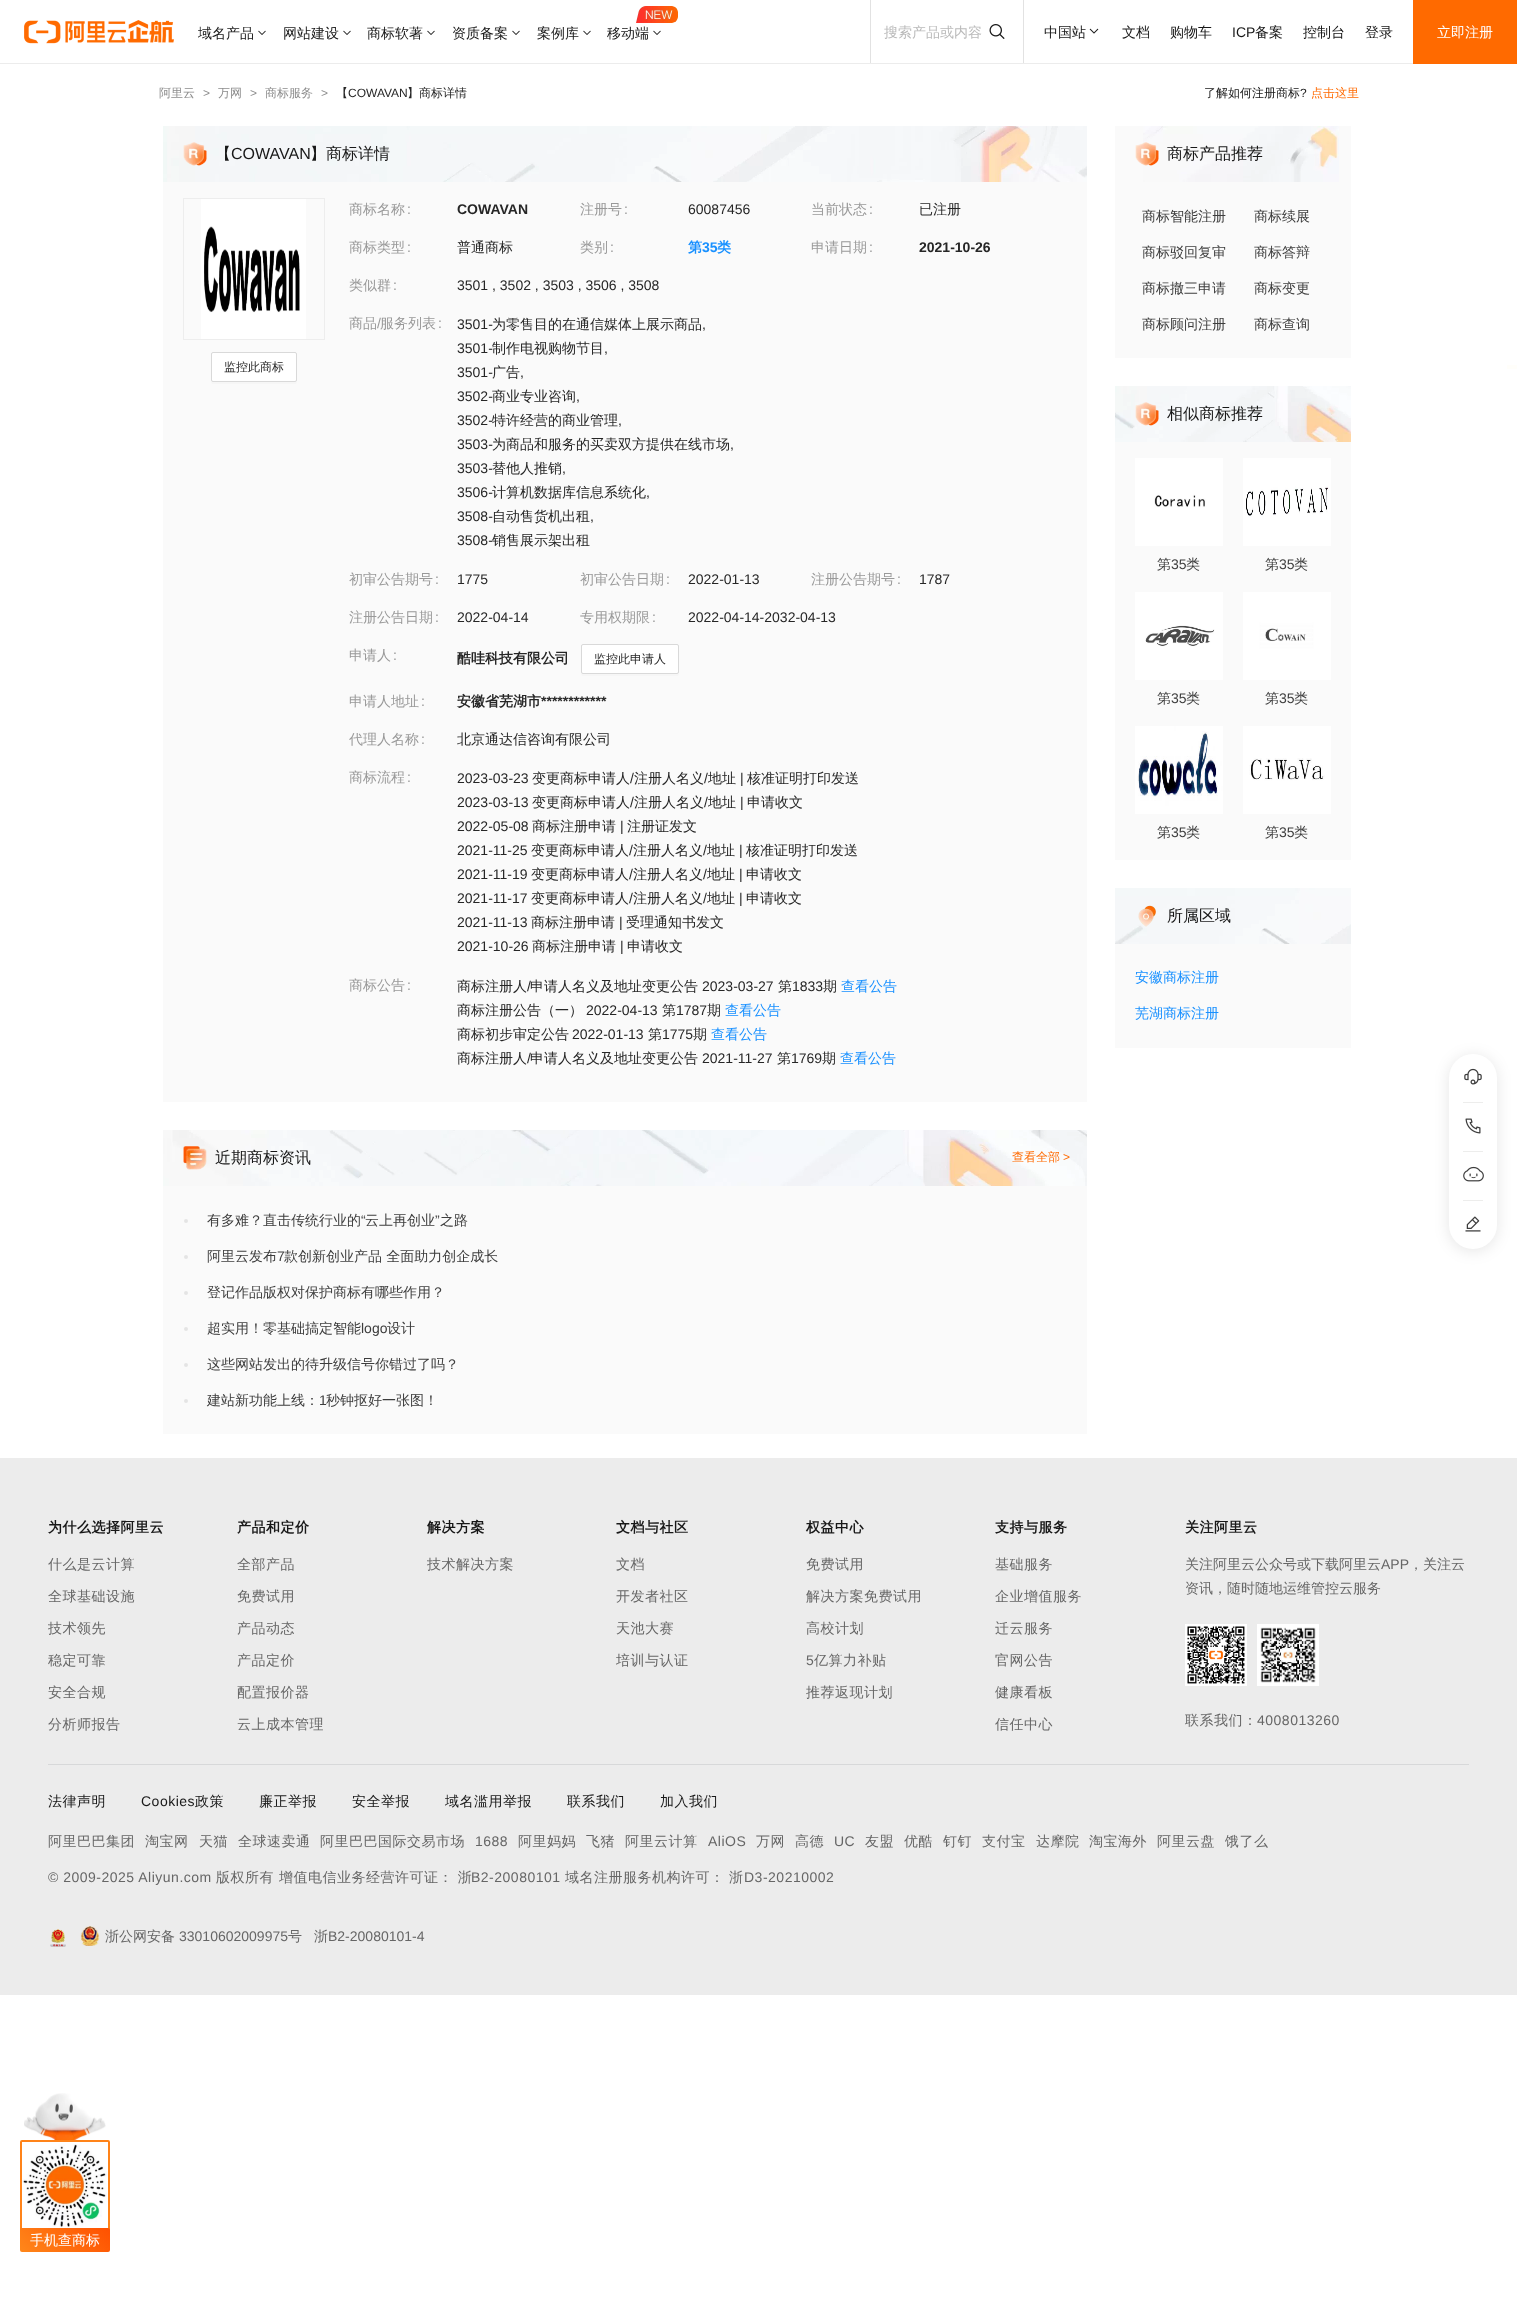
<?xml version="1.0" encoding="UTF-8"?>
<svg xmlns="http://www.w3.org/2000/svg" width="1517" height="2302">
    <defs>
        <filter id="blur1" x="-50%" y="-200%" width="200%" height="500%"><feGaussianBlur stdDeviation="7.5"/></filter>
        <linearGradient id="g1" gradientUnits="userSpaceOnUse" x1="37" y1="2269" x2="94" y2="2212"><stop offset="0" stop-color="#FF871A"/><stop offset="1" stop-color="#FF5000"/></linearGradient>
    </defs>
    <rect width="100%" height="100%" fill="#FFFFFF"/>
    <rect x="0" y="63" width="1413" height="1" fill="#ECECEC"/>
    <image x="24" y="20" width="150" height="24" href="img_01.png"/>
    <text x="198" y="38" font-family="WenQuanYi Zen Hei" font-size="14" font-weight="500" fill="#181818">域名产品</text>
    <image x="258" y="30" width="8" height="5" href="img_02.png"/>
    <text x="283" y="38" font-family="WenQuanYi Zen Hei" font-size="14" font-weight="500" fill="#181818">网站建设</text>
    <image x="343" y="30" width="8" height="5" href="img_02.png"/>
    <text x="367" y="38" font-family="WenQuanYi Zen Hei" font-size="14" font-weight="500" fill="#181818">商标软著</text>
    <image x="427" y="30" width="8" height="5" href="img_02.png"/>
    <text x="452" y="38" font-family="WenQuanYi Zen Hei" font-size="14" font-weight="500" fill="#181818">资质备案</text>
    <image x="512" y="30" width="8" height="5" href="img_02.png"/>
    <text x="537" y="38" font-family="WenQuanYi Zen Hei" font-size="14" font-weight="500" fill="#181818">案例库</text>
    <image x="583" y="30" width="8" height="5" href="img_02.png"/>
    <image x="636" y="6" width="42" height="17" href="img_03.png"/>
    <text x="607" y="38" font-family="WenQuanYi Zen Hei" font-size="14" font-weight="500" fill="#181818">移动端</text>
    <image x="653" y="30" width="8" height="5" href="img_02.png"/>
    <rect x="1023" y="0" width="1" height="63" fill="#E2E2E2"/>
    <rect x="870" y="0" width="1" height="63" fill="#E2E2E2"/>
    <text x="884" y="37" font-family="WenQuanYi Zen Hei" font-size="14" font-weight="500" fill="#BABABA">搜索产品或内容</text>
    <image x="989" y="24" width="16" height="15" href="img_04.png"/>
    <text x="1044" y="37" font-family="WenQuanYi Zen Hei" font-size="14" font-weight="500" fill="#181818">中国站</text>
    <image x="1089" y="28" width="10" height="6" href="img_05.png"/>
    <text x="1122" y="37" font-family="WenQuanYi Zen Hei" font-size="14" font-weight="500" fill="#181818">文档</text>
    <text x="1170" y="37" font-family="WenQuanYi Zen Hei" font-size="14" font-weight="500" fill="#181818">购物车</text>
    <text x="1232" y="37" font-family="Liberation Sans" font-size="14" fill="#181818">ICP</text>
    <text x="1255" y="37" font-family="WenQuanYi Zen Hei" font-size="14" font-weight="500" fill="#181818">备案</text>
    <text x="1303" y="37" font-family="WenQuanYi Zen Hei" font-size="14" font-weight="500" fill="#181818">控制台</text>
    <text x="1365" y="37" font-family="WenQuanYi Zen Hei" font-size="14" font-weight="500" fill="#181818">登录</text>
    <rect x="1413" y="0" width="104" height="64" fill="#FF6A00"/>
    <text x="1437" y="37" font-family="WenQuanYi Zen Hei" font-size="14" font-weight="500" fill="#FFFFFF">立即注册</text>
    <rect x="1449" y="1056" width="48" height="195" rx="24" fill="#000000" fill-opacity="0.1" filter="url(#blur1)"/>
    <rect x="1449" y="1054" width="48" height="195" rx="24" fill="#FFFFFF"/>
    <image x="1464" y="1068" width="18" height="17" href="img_06.png"/>
    <rect x="1463" y="1102" width="20" height="1" fill="#EDEDEC"/>
    <image x="1465" y="1118" width="16" height="16" href="img_07.png"/>
    <rect x="1463" y="1151" width="20" height="1" fill="#EDEDEC"/>
    <image x="1463" y="1166" width="21" height="16" href="img_08.png"/>
    <rect x="1463" y="1200" width="20" height="1" fill="#EDEDEC"/>
    <image x="1465" y="1216" width="16" height="16" href="img_09.png"/>
    <rect x="1507" y="365" width="10" height="4" fill="#FFFEFA"/>
    <text x="159" y="97" font-family="WenQuanYi Zen Hei" font-size="12" font-weight="500" fill="#8C8C8C">阿里云</text>
    <text x="203" y="97" font-family="Liberation Sans" font-size="12" fill="#8C8C8C">&gt;</text>
    <text x="218" y="97" font-family="WenQuanYi Zen Hei" font-size="12" font-weight="500" fill="#8C8C8C">万网</text>
    <text x="250" y="97" font-family="Liberation Sans" font-size="12" fill="#8C8C8C">&gt;</text>
    <text x="265" y="97" font-family="WenQuanYi Zen Hei" font-size="12" font-weight="500" fill="#8C8C8C">商标服务</text>
    <text x="321" y="97" font-family="Liberation Sans" font-size="12" fill="#8C8C8C">&gt;</text>
    <text x="336" y="97" font-family="WenQuanYi Zen Hei" font-size="12" font-weight="500" fill="#262626">【</text>
    <text x="348" y="97" font-family="Liberation Sans" font-size="12" fill="#262626">COWAVAN</text>
    <text x="407" y="97" font-family="WenQuanYi Zen Hei" font-size="12" font-weight="500" fill="#262626">】商标详情</text>
    <text x="1204" y="97" font-family="WenQuanYi Zen Hei" font-size="12" font-weight="500" fill="#181818">了解如何注册商标</text>
    <text x="1300" y="97" font-family="Liberation Sans" font-size="12" fill="#181818">?</text>
    <text x="1311" y="97" font-family="WenQuanYi Zen Hei" font-size="12" font-weight="500" fill="#FF6A00">点击这里</text>
    <rect x="163" y="182" width="924" height="920" fill="#FAFAFA"/>
    <image x="163" y="126" width="924" height="56" href="img_10.png"/>
    <image x="183" y="142" width="24" height="24" href="img_11.png"/>
    <text x="215" y="159" font-family="WenQuanYi Zen Hei" font-size="16" font-weight="500" fill="#181818">【</text>
    <text x="231" y="159" font-family="Liberation Sans" font-size="16" fill="#181818">COWAVAN</text>
    <text x="310" y="159" font-family="WenQuanYi Zen Hei" font-size="16" font-weight="500" fill="#181818">】商标详情</text>
    <rect x="183.5" y="198.5" width="141" height="141" fill="none" stroke="#EDEDED"/>
    <image x="201" y="199" width="105" height="140" href="img_12.png"/>
    <path d="M 211 380 V 382 C 211 383 212 384 213 384 H 295 C 296 384 297 383 297 382 V 380 C 297 381 296 382 295 382 H 213 C 212 382 211 381 211 380 Z" fill="#F6F6F6"/>
    <rect x="211.5" y="352.5" width="85" height="29" rx="1.5" fill="#FFFFFF" stroke="#D9D9D9"/>
    <text x="224" y="371" font-family="WenQuanYi Zen Hei" font-size="12" font-weight="500" fill="#262626">监控此商标</text>
    <text x="349" y="214" font-family="WenQuanYi Zen Hei" font-size="14" font-weight="500" fill="#999999">商标名称</text>
    <text x="407" y="214" font-family="Liberation Sans" font-size="14" fill="#999999">:</text>
    <text x="457" y="214" font-family="Liberation Sans" font-size="14" font-weight="700" fill="#262626">COWAVAN</text>
    <text x="580" y="214" font-family="WenQuanYi Zen Hei" font-size="14" font-weight="500" fill="#999999">注册号</text>
    <text x="624" y="214" font-family="Liberation Sans" font-size="14" fill="#999999">:</text>
    <text x="688" y="214" font-family="Liberation Sans" font-size="14" fill="#262626">60087456</text>
    <text x="811" y="214" font-family="WenQuanYi Zen Hei" font-size="14" font-weight="500" fill="#999999">当前状态</text>
    <text x="869" y="214" font-family="Liberation Sans" font-size="14" fill="#999999">:</text>
    <text x="919" y="214" font-family="WenQuanYi Zen Hei" font-size="14" font-weight="500" fill="#262626">已注册</text>
    <text x="349" y="252" font-family="WenQuanYi Zen Hei" font-size="14" font-weight="500" fill="#999999">商标类型</text>
    <text x="407" y="252" font-family="Liberation Sans" font-size="14" fill="#999999">:</text>
    <text x="457" y="252" font-family="WenQuanYi Zen Hei" font-size="14" font-weight="500" fill="#262626">普通商标</text>
    <text x="580" y="252" font-family="WenQuanYi Zen Hei" font-size="14" font-weight="500" fill="#999999">类别</text>
    <text x="610" y="252" font-family="Liberation Sans" font-size="14" fill="#999999">:</text>
    <text x="688" y="252" font-family="WenQuanYi Zen Hei" font-size="14" font-weight="700" fill="#1890FF">第</text>
    <text x="702" y="252" font-family="Liberation Sans" font-size="14" font-weight="700" fill="#1890FF">35</text>
    <text x="717" y="252" font-family="WenQuanYi Zen Hei" font-size="14" font-weight="700" fill="#1890FF">类</text>
    <text x="811" y="252" font-family="WenQuanYi Zen Hei" font-size="14" font-weight="500" fill="#999999">申请日期</text>
    <text x="869" y="252" font-family="Liberation Sans" font-size="14" fill="#999999">:</text>
    <text x="919" y="252" font-family="Liberation Sans" font-size="14" font-weight="700" fill="#262626">2021-10-26</text>
    <text x="349" y="290" font-family="WenQuanYi Zen Hei" font-size="14" font-weight="500" fill="#999999">类似群</text>
    <text x="393" y="290" font-family="Liberation Sans" font-size="14" fill="#999999">:</text>
    <text x="457" y="290" font-family="Liberation Sans" font-size="14" fill="#262626">3501 , 3502 , 3503 , 3506 , 3508</text>
    <text x="349" y="328" font-family="WenQuanYi Zen Hei" font-size="14" font-weight="500" fill="#999999">商品</text>
    <text x="377" y="328" font-family="Liberation Sans" font-size="14" fill="#999999">/</text>
    <text x="380" y="328" font-family="WenQuanYi Zen Hei" font-size="14" font-weight="500" fill="#999999">服务列表</text>
    <text x="438" y="328" font-family="Liberation Sans" font-size="14" fill="#999999">:</text>
    <text x="457" y="329" font-family="Liberation Sans" font-size="14" fill="#262626">3501-</text>
    <text x="492" y="329" font-family="WenQuanYi Zen Hei" font-size="14" font-weight="500" fill="#262626">为零售目的在通信媒体上展示商品</text>
    <text x="702" y="329" font-family="Liberation Sans" font-size="14" fill="#262626">,</text>
    <text x="457" y="353" font-family="Liberation Sans" font-size="14" fill="#262626">3501-</text>
    <text x="492" y="353" font-family="WenQuanYi Zen Hei" font-size="14" font-weight="500" fill="#262626">制作电视购物节目</text>
    <text x="604" y="353" font-family="Liberation Sans" font-size="14" fill="#262626">,</text>
    <text x="457" y="377" font-family="Liberation Sans" font-size="14" fill="#262626">3501-</text>
    <text x="492" y="377" font-family="WenQuanYi Zen Hei" font-size="14" font-weight="500" fill="#262626">广告</text>
    <text x="520" y="377" font-family="Liberation Sans" font-size="14" fill="#262626">,</text>
    <text x="457" y="401" font-family="Liberation Sans" font-size="14" fill="#262626">3502-</text>
    <text x="492" y="401" font-family="WenQuanYi Zen Hei" font-size="14" font-weight="500" fill="#262626">商业专业咨询</text>
    <text x="576" y="401" font-family="Liberation Sans" font-size="14" fill="#262626">,</text>
    <text x="457" y="425" font-family="Liberation Sans" font-size="14" fill="#262626">3502-</text>
    <text x="492" y="425" font-family="WenQuanYi Zen Hei" font-size="14" font-weight="500" fill="#262626">特许经营的商业管理</text>
    <text x="618" y="425" font-family="Liberation Sans" font-size="14" fill="#262626">,</text>
    <text x="457" y="449" font-family="Liberation Sans" font-size="14" fill="#262626">3503-</text>
    <text x="492" y="449" font-family="WenQuanYi Zen Hei" font-size="14" font-weight="500" fill="#262626">为商品和服务的买卖双方提供在线市场</text>
    <text x="730" y="449" font-family="Liberation Sans" font-size="14" fill="#262626">,</text>
    <text x="457" y="473" font-family="Liberation Sans" font-size="14" fill="#262626">3503-</text>
    <text x="492" y="473" font-family="WenQuanYi Zen Hei" font-size="14" font-weight="500" fill="#262626">替他人推销</text>
    <text x="562" y="473" font-family="Liberation Sans" font-size="14" fill="#262626">,</text>
    <text x="457" y="497" font-family="Liberation Sans" font-size="14" fill="#262626">3506-</text>
    <text x="492" y="497" font-family="WenQuanYi Zen Hei" font-size="14" font-weight="500" fill="#262626">计算机数据库信息系统化</text>
    <text x="646" y="497" font-family="Liberation Sans" font-size="14" fill="#262626">,</text>
    <text x="457" y="521" font-family="Liberation Sans" font-size="14" fill="#262626">3508-</text>
    <text x="492" y="521" font-family="WenQuanYi Zen Hei" font-size="14" font-weight="500" fill="#262626">自动售货机出租</text>
    <text x="590" y="521" font-family="Liberation Sans" font-size="14" fill="#262626">,</text>
    <text x="457" y="545" font-family="Liberation Sans" font-size="14" fill="#262626">3508-</text>
    <text x="492" y="545" font-family="WenQuanYi Zen Hei" font-size="14" font-weight="500" fill="#262626">销售展示架出租</text>
    <text x="349" y="584" font-family="WenQuanYi Zen Hei" font-size="14" font-weight="500" fill="#999999">初审公告期号</text>
    <text x="435" y="584" font-family="Liberation Sans" font-size="14" fill="#999999">:</text>
    <text x="457" y="584" font-family="Liberation Sans" font-size="14" fill="#262626">1775</text>
    <text x="580" y="584" font-family="WenQuanYi Zen Hei" font-size="14" font-weight="500" fill="#999999">初审公告日期</text>
    <text x="666" y="584" font-family="Liberation Sans" font-size="14" fill="#999999">:</text>
    <text x="688" y="584" font-family="Liberation Sans" font-size="14" fill="#262626">2022-01-13</text>
    <text x="811" y="584" font-family="WenQuanYi Zen Hei" font-size="14" font-weight="500" fill="#999999">注册公告期号</text>
    <text x="897" y="584" font-family="Liberation Sans" font-size="14" fill="#999999">:</text>
    <text x="919" y="584" font-family="Liberation Sans" font-size="14" fill="#262626">1787</text>
    <text x="349" y="622" font-family="WenQuanYi Zen Hei" font-size="14" font-weight="500" fill="#999999">注册公告日期</text>
    <text x="435" y="622" font-family="Liberation Sans" font-size="14" fill="#999999">:</text>
    <text x="457" y="622" font-family="Liberation Sans" font-size="14" fill="#262626">2022-04-14</text>
    <text x="580" y="622" font-family="WenQuanYi Zen Hei" font-size="14" font-weight="500" fill="#999999">专用权期限</text>
    <text x="652" y="622" font-family="Liberation Sans" font-size="14" fill="#999999">:</text>
    <text x="688" y="622" font-family="Liberation Sans" font-size="14" fill="#262626">2022-04-14-2032-04-13</text>
    <text x="349" y="660" font-family="WenQuanYi Zen Hei" font-size="14" font-weight="500" fill="#999999">申请人</text>
    <text x="393" y="660" font-family="Liberation Sans" font-size="14" fill="#999999">:</text>
    <text x="457" y="663" font-family="WenQuanYi Zen Hei" font-size="14" font-weight="700" fill="#262626">酷哇科技有限公司</text>
    <path d="M 581 672 V 674 C 581 675 582 676 583 676 H 677 C 678 676 679 675 679 674 V 672 C 679 673 678 674 677 674 H 583 C 582 674 581 673 581 672 Z" fill="#F6F6F6"/>
    <rect x="581.5" y="644.5" width="97" height="29" rx="1.5" fill="#FFFFFF" stroke="#D9D9D9"/>
    <text x="594" y="663" font-family="WenQuanYi Zen Hei" font-size="12" font-weight="500" fill="#262626">监控此申请人</text>
    <text x="349" y="706" font-family="WenQuanYi Zen Hei" font-size="14" font-weight="500" fill="#999999">申请人地址</text>
    <text x="421" y="706" font-family="Liberation Sans" font-size="14" fill="#999999">:</text>
    <text x="457" y="706" font-family="WenQuanYi Zen Hei" font-size="14" font-weight="700" fill="#262626">安徽省芜湖市</text>
    <text x="541" y="706" font-family="Liberation Sans" font-size="14" font-weight="700" fill="#262626">************</text>
    <text x="349" y="744" font-family="WenQuanYi Zen Hei" font-size="14" font-weight="500" fill="#999999">代理人名称</text>
    <text x="421" y="744" font-family="Liberation Sans" font-size="14" fill="#999999">:</text>
    <text x="457" y="744" font-family="WenQuanYi Zen Hei" font-size="14" font-weight="500" fill="#262626">北京通达信咨询有限公司</text>
    <text x="349" y="782" font-family="WenQuanYi Zen Hei" font-size="14" font-weight="500" fill="#999999">商标流程</text>
    <text x="407" y="782" font-family="Liberation Sans" font-size="14" fill="#999999">:</text>
    <text x="457" y="783" font-family="Liberation Sans" font-size="14" fill="#262626">2023-03-23</text>
    <text x="532" y="783" font-family="WenQuanYi Zen Hei" font-size="14" font-weight="500" fill="#262626">变更商标申请人</text>
    <text x="630" y="783" font-family="Liberation Sans" font-size="14" fill="#262626">/</text>
    <text x="634" y="783" font-family="WenQuanYi Zen Hei" font-size="14" font-weight="500" fill="#262626">注册人名义</text>
    <text x="704" y="783" font-family="Liberation Sans" font-size="14" fill="#262626">/</text>
    <text x="708" y="783" font-family="WenQuanYi Zen Hei" font-size="14" font-weight="500" fill="#262626">地址</text>
    <text x="740" y="783" font-family="Liberation Sans" font-size="14" fill="#262626">|</text>
    <text x="747" y="783" font-family="WenQuanYi Zen Hei" font-size="14" font-weight="500" fill="#262626">核准证明打印发送</text>
    <text x="457" y="807" font-family="Liberation Sans" font-size="14" fill="#262626">2023-03-13</text>
    <text x="532" y="807" font-family="WenQuanYi Zen Hei" font-size="14" font-weight="500" fill="#262626">变更商标申请人</text>
    <text x="630" y="807" font-family="Liberation Sans" font-size="14" fill="#262626">/</text>
    <text x="634" y="807" font-family="WenQuanYi Zen Hei" font-size="14" font-weight="500" fill="#262626">注册人名义</text>
    <text x="704" y="807" font-family="Liberation Sans" font-size="14" fill="#262626">/</text>
    <text x="708" y="807" font-family="WenQuanYi Zen Hei" font-size="14" font-weight="500" fill="#262626">地址</text>
    <text x="740" y="807" font-family="Liberation Sans" font-size="14" fill="#262626">|</text>
    <text x="747" y="807" font-family="WenQuanYi Zen Hei" font-size="14" font-weight="500" fill="#262626">申请收文</text>
    <text x="457" y="831" font-family="Liberation Sans" font-size="14" fill="#262626">2022-05-08</text>
    <text x="532" y="831" font-family="WenQuanYi Zen Hei" font-size="14" font-weight="500" fill="#262626">商标注册申请</text>
    <text x="620" y="831" font-family="Liberation Sans" font-size="14" fill="#262626">|</text>
    <text x="627" y="831" font-family="WenQuanYi Zen Hei" font-size="14" font-weight="500" fill="#262626">注册证发文</text>
    <text x="457" y="855" font-family="Liberation Sans" font-size="14" fill="#262626">2021-11-25</text>
    <text x="531" y="855" font-family="WenQuanYi Zen Hei" font-size="14" font-weight="500" fill="#262626">变更商标申请人</text>
    <text x="629" y="855" font-family="Liberation Sans" font-size="14" fill="#262626">/</text>
    <text x="633" y="855" font-family="WenQuanYi Zen Hei" font-size="14" font-weight="500" fill="#262626">注册人名义</text>
    <text x="703" y="855" font-family="Liberation Sans" font-size="14" fill="#262626">/</text>
    <text x="707" y="855" font-family="WenQuanYi Zen Hei" font-size="14" font-weight="500" fill="#262626">地址</text>
    <text x="739" y="855" font-family="Liberation Sans" font-size="14" fill="#262626">|</text>
    <text x="746" y="855" font-family="WenQuanYi Zen Hei" font-size="14" font-weight="500" fill="#262626">核准证明打印发送</text>
    <text x="457" y="879" font-family="Liberation Sans" font-size="14" fill="#262626">2021-11-19</text>
    <text x="531" y="879" font-family="WenQuanYi Zen Hei" font-size="14" font-weight="500" fill="#262626">变更商标申请人</text>
    <text x="629" y="879" font-family="Liberation Sans" font-size="14" fill="#262626">/</text>
    <text x="633" y="879" font-family="WenQuanYi Zen Hei" font-size="14" font-weight="500" fill="#262626">注册人名义</text>
    <text x="703" y="879" font-family="Liberation Sans" font-size="14" fill="#262626">/</text>
    <text x="707" y="879" font-family="WenQuanYi Zen Hei" font-size="14" font-weight="500" fill="#262626">地址</text>
    <text x="739" y="879" font-family="Liberation Sans" font-size="14" fill="#262626">|</text>
    <text x="746" y="879" font-family="WenQuanYi Zen Hei" font-size="14" font-weight="500" fill="#262626">申请收文</text>
    <text x="457" y="903" font-family="Liberation Sans" font-size="14" fill="#262626">2021-11-17</text>
    <text x="531" y="903" font-family="WenQuanYi Zen Hei" font-size="14" font-weight="500" fill="#262626">变更商标申请人</text>
    <text x="629" y="903" font-family="Liberation Sans" font-size="14" fill="#262626">/</text>
    <text x="633" y="903" font-family="WenQuanYi Zen Hei" font-size="14" font-weight="500" fill="#262626">注册人名义</text>
    <text x="703" y="903" font-family="Liberation Sans" font-size="14" fill="#262626">/</text>
    <text x="707" y="903" font-family="WenQuanYi Zen Hei" font-size="14" font-weight="500" fill="#262626">地址</text>
    <text x="739" y="903" font-family="Liberation Sans" font-size="14" fill="#262626">|</text>
    <text x="746" y="903" font-family="WenQuanYi Zen Hei" font-size="14" font-weight="500" fill="#262626">申请收文</text>
    <text x="457" y="927" font-family="Liberation Sans" font-size="14" fill="#262626">2021-11-13</text>
    <text x="531" y="927" font-family="WenQuanYi Zen Hei" font-size="14" font-weight="500" fill="#262626">商标注册申请</text>
    <text x="619" y="927" font-family="Liberation Sans" font-size="14" fill="#262626">|</text>
    <text x="626" y="927" font-family="WenQuanYi Zen Hei" font-size="14" font-weight="500" fill="#262626">受理通知书发文</text>
    <text x="457" y="951" font-family="Liberation Sans" font-size="14" fill="#262626">2021-10-26</text>
    <text x="532" y="951" font-family="WenQuanYi Zen Hei" font-size="14" font-weight="500" fill="#262626">商标注册申请</text>
    <text x="620" y="951" font-family="Liberation Sans" font-size="14" fill="#262626">|</text>
    <text x="627" y="951" font-family="WenQuanYi Zen Hei" font-size="14" font-weight="500" fill="#262626">申请收文</text>
    <text x="349" y="990" font-family="WenQuanYi Zen Hei" font-size="14" font-weight="500" fill="#999999">商标公告</text>
    <text x="407" y="990" font-family="Liberation Sans" font-size="14" fill="#999999">:</text>
    <text x="457" y="991" font-family="WenQuanYi Zen Hei" font-size="14" font-weight="500" fill="#262626">商标注册人</text>
    <text x="527" y="991" font-family="Liberation Sans" font-size="14" fill="#262626">/</text>
    <text x="530" y="991" font-family="WenQuanYi Zen Hei" font-size="14" font-weight="500" fill="#262626">申请人名义及地址变更公告</text>
    <text x="702" y="991" font-family="Liberation Sans" font-size="14" fill="#262626">2023-03-27</text>
    <text x="778" y="991" font-family="WenQuanYi Zen Hei" font-size="14" font-weight="500" fill="#262626">第</text>
    <text x="792" y="991" font-family="Liberation Sans" font-size="14" fill="#262626">1833</text>
    <text x="823" y="991" font-family="WenQuanYi Zen Hei" font-size="14" font-weight="500" fill="#262626">期</text>
    <text x="841" y="991" font-family="WenQuanYi Zen Hei" font-size="14" font-weight="500" fill="#1890FF">查看公告</text>
    <text x="457" y="1015" font-family="WenQuanYi Zen Hei" font-size="14" font-weight="500" fill="#262626">商标注册公告（一）</text>
    <text x="586" y="1015" font-family="Liberation Sans" font-size="14" fill="#262626">2022-04-13</text>
    <text x="662" y="1015" font-family="WenQuanYi Zen Hei" font-size="14" font-weight="500" fill="#262626">第</text>
    <text x="676" y="1015" font-family="Liberation Sans" font-size="14" fill="#262626">1787</text>
    <text x="707" y="1015" font-family="WenQuanYi Zen Hei" font-size="14" font-weight="500" fill="#262626">期</text>
    <text x="725" y="1015" font-family="WenQuanYi Zen Hei" font-size="14" font-weight="500" fill="#1890FF">查看公告</text>
    <text x="457" y="1039" font-family="WenQuanYi Zen Hei" font-size="14" font-weight="500" fill="#262626">商标初步审定公告</text>
    <text x="572" y="1039" font-family="Liberation Sans" font-size="14" fill="#262626">2022-01-13</text>
    <text x="648" y="1039" font-family="WenQuanYi Zen Hei" font-size="14" font-weight="500" fill="#262626">第</text>
    <text x="662" y="1039" font-family="Liberation Sans" font-size="14" fill="#262626">1775</text>
    <text x="693" y="1039" font-family="WenQuanYi Zen Hei" font-size="14" font-weight="500" fill="#262626">期</text>
    <text x="711" y="1039" font-family="WenQuanYi Zen Hei" font-size="14" font-weight="500" fill="#1890FF">查看公告</text>
    <text x="457" y="1063" font-family="WenQuanYi Zen Hei" font-size="14" font-weight="500" fill="#262626">商标注册人</text>
    <text x="527" y="1063" font-family="Liberation Sans" font-size="14" fill="#262626">/</text>
    <text x="530" y="1063" font-family="WenQuanYi Zen Hei" font-size="14" font-weight="500" fill="#262626">申请人名义及地址变更公告</text>
    <text x="702" y="1063" font-family="Liberation Sans" font-size="14" fill="#262626">2021-11-27</text>
    <text x="777" y="1063" font-family="WenQuanYi Zen Hei" font-size="14" font-weight="500" fill="#262626">第</text>
    <text x="791" y="1063" font-family="Liberation Sans" font-size="14" fill="#262626">1769</text>
    <text x="822" y="1063" font-family="WenQuanYi Zen Hei" font-size="14" font-weight="500" fill="#262626">期</text>
    <text x="840" y="1063" font-family="WenQuanYi Zen Hei" font-size="14" font-weight="500" fill="#1890FF">查看公告</text>
    <rect x="163" y="1186" width="924" height="248" fill="#FAFAFA"/>
    <image x="163" y="1130" width="924" height="56" href="img_13.png"/>
    <image x="183" y="1146" width="24" height="24" href="img_14.png"/>
    <text x="215" y="1163" font-family="WenQuanYi Zen Hei" font-size="16" font-weight="500" fill="#181818">近期商标资讯</text>
    <text x="1012" y="1161" font-family="WenQuanYi Zen Hei" font-size="12" font-weight="500" fill="#FF6A00">查看全部</text>
    <text x="1063" y="1161" font-family="Liberation Sans" font-size="12" fill="#FF6A00">&gt;</text>
    <circle cx="186" cy="1221" r="2" fill="#E4E4E4"/>
    <text x="207" y="1225" font-family="WenQuanYi Zen Hei" font-size="14" font-weight="500" fill="#3D3D3D">有多难？直击传统行业的</text>
    <text x="361" y="1225" font-family="Liberation Sans" font-size="14" fill="#3D3D3D">“</text>
    <text x="365" y="1225" font-family="WenQuanYi Zen Hei" font-size="14" font-weight="500" fill="#3D3D3D">云上再创业</text>
    <text x="435" y="1225" font-family="Liberation Sans" font-size="14" fill="#3D3D3D">”</text>
    <text x="440" y="1225" font-family="WenQuanYi Zen Hei" font-size="14" font-weight="500" fill="#3D3D3D">之路</text>
    <circle cx="186" cy="1257" r="2" fill="#E4E4E4"/>
    <text x="207" y="1261" font-family="WenQuanYi Zen Hei" font-size="14" font-weight="500" fill="#3D3D3D">阿里云发布</text>
    <text x="277" y="1261" font-family="Liberation Sans" font-size="14" fill="#3D3D3D">7</text>
    <text x="284" y="1261" font-family="WenQuanYi Zen Hei" font-size="14" font-weight="500" fill="#3D3D3D">款创新创业产品 全面助力创企成长</text>
    <circle cx="186" cy="1293" r="2" fill="#E4E4E4"/>
    <text x="207" y="1297" font-family="WenQuanYi Zen Hei" font-size="14" font-weight="500" fill="#3D3D3D">登记作品版权对保护商标有哪些作用？</text>
    <circle cx="186" cy="1329" r="2" fill="#E4E4E4"/>
    <text x="207" y="1333" font-family="WenQuanYi Zen Hei" font-size="14" font-weight="500" fill="#3D3D3D">超实用！零基础搞定智能</text>
    <text x="361" y="1333" font-family="Liberation Sans" font-size="14" fill="#3D3D3D">logo</text>
    <text x="387" y="1333" font-family="WenQuanYi Zen Hei" font-size="14" font-weight="500" fill="#3D3D3D">设计</text>
    <circle cx="186" cy="1365" r="2" fill="#E4E4E4"/>
    <text x="207" y="1369" font-family="WenQuanYi Zen Hei" font-size="14" font-weight="500" fill="#3D3D3D">这些网站发出的待升级信号你错过了吗？</text>
    <circle cx="186" cy="1401" r="2" fill="#E4E4E4"/>
    <text x="207" y="1405" font-family="WenQuanYi Zen Hei" font-size="14" font-weight="500" fill="#3D3D3D">建站新功能上线：</text>
    <text x="319" y="1405" font-family="Liberation Sans" font-size="14" fill="#3D3D3D">1</text>
    <text x="326" y="1405" font-family="WenQuanYi Zen Hei" font-size="14" font-weight="500" fill="#3D3D3D">秒钟抠好一张图！</text>
    <rect x="1115" y="126" width="236" height="232" fill="#FAFAFA"/>
    <image x="1143" y="126" width="196" height="56" href="img_15.png"/>
    <image x="1135" y="142" width="24" height="24" href="img_16.png"/>
    <text x="1167" y="159" font-family="WenQuanYi Zen Hei" font-size="16" font-weight="500" fill="#181818">商标产品推荐</text>
    <text x="1142" y="221" font-family="WenQuanYi Zen Hei" font-size="14" font-weight="500" fill="#3D3D3D">商标智能注册</text>
    <text x="1254" y="221" font-family="WenQuanYi Zen Hei" font-size="14" font-weight="500" fill="#3D3D3D">商标续展</text>
    <text x="1142" y="257" font-family="WenQuanYi Zen Hei" font-size="14" font-weight="500" fill="#3D3D3D">商标驳回复审</text>
    <text x="1254" y="257" font-family="WenQuanYi Zen Hei" font-size="14" font-weight="500" fill="#3D3D3D">商标答辩</text>
    <text x="1142" y="293" font-family="WenQuanYi Zen Hei" font-size="14" font-weight="500" fill="#3D3D3D">商标撤三申请</text>
    <text x="1254" y="293" font-family="WenQuanYi Zen Hei" font-size="14" font-weight="500" fill="#3D3D3D">商标变更</text>
    <text x="1142" y="329" font-family="WenQuanYi Zen Hei" font-size="14" font-weight="500" fill="#3D3D3D">商标顾问注册</text>
    <text x="1254" y="329" font-family="WenQuanYi Zen Hei" font-size="14" font-weight="500" fill="#3D3D3D">商标查询</text>
    <rect x="1115" y="442" width="236" height="418" fill="#FAFAFA"/>
    <image x="1115" y="386" width="236" height="56" href="img_17.png"/>
    <image x="1135" y="402" width="24" height="24" href="img_18.png"/>
    <text x="1167" y="419" font-family="WenQuanYi Zen Hei" font-size="16" font-weight="500" fill="#181818">相似商标推荐</text>
    <image x="1135" y="458" width="88" height="88" href="img_19.png"/>
    <text x="1157" y="569" font-family="WenQuanYi Zen Hei" font-size="14" font-weight="500" fill="#3D3D3D">第</text>
    <text x="1171" y="569" font-family="Liberation Sans" font-size="14" fill="#3D3D3D">35</text>
    <text x="1186" y="569" font-family="WenQuanYi Zen Hei" font-size="14" font-weight="500" fill="#3D3D3D">类</text>
    <image x="1243" y="458" width="88" height="88" href="img_20.png"/>
    <text x="1265" y="569" font-family="WenQuanYi Zen Hei" font-size="14" font-weight="500" fill="#3D3D3D">第</text>
    <text x="1279" y="569" font-family="Liberation Sans" font-size="14" fill="#3D3D3D">35</text>
    <text x="1294" y="569" font-family="WenQuanYi Zen Hei" font-size="14" font-weight="500" fill="#3D3D3D">类</text>
    <image x="1135" y="592" width="88" height="88" href="img_21.png"/>
    <text x="1157" y="703" font-family="WenQuanYi Zen Hei" font-size="14" font-weight="500" fill="#3D3D3D">第</text>
    <text x="1171" y="703" font-family="Liberation Sans" font-size="14" fill="#3D3D3D">35</text>
    <text x="1186" y="703" font-family="WenQuanYi Zen Hei" font-size="14" font-weight="500" fill="#3D3D3D">类</text>
    <image x="1243" y="592" width="88" height="88" href="img_22.png"/>
    <text x="1265" y="703" font-family="WenQuanYi Zen Hei" font-size="14" font-weight="500" fill="#3D3D3D">第</text>
    <text x="1279" y="703" font-family="Liberation Sans" font-size="14" fill="#3D3D3D">35</text>
    <text x="1294" y="703" font-family="WenQuanYi Zen Hei" font-size="14" font-weight="500" fill="#3D3D3D">类</text>
    <image x="1135" y="726" width="88" height="88" href="img_23.png"/>
    <text x="1157" y="837" font-family="WenQuanYi Zen Hei" font-size="14" font-weight="500" fill="#3D3D3D">第</text>
    <text x="1171" y="837" font-family="Liberation Sans" font-size="14" fill="#3D3D3D">35</text>
    <text x="1186" y="837" font-family="WenQuanYi Zen Hei" font-size="14" font-weight="500" fill="#3D3D3D">类</text>
    <image x="1243" y="726" width="88" height="88" href="img_24.png"/>
    <text x="1265" y="837" font-family="WenQuanYi Zen Hei" font-size="14" font-weight="500" fill="#3D3D3D">第</text>
    <text x="1279" y="837" font-family="Liberation Sans" font-size="14" fill="#3D3D3D">35</text>
    <text x="1294" y="837" font-family="WenQuanYi Zen Hei" font-size="14" font-weight="500" fill="#3D3D3D">类</text>
    <rect x="1115" y="944" width="236" height="104" fill="#FAFAFA"/>
    <image x="1115" y="888" width="236" height="56" href="img_25.png"/>
    <image x="1138" y="905" width="18" height="22" href="img_26.png"/>
    <text x="1167" y="921" font-family="WenQuanYi Zen Hei" font-size="16" font-weight="500" fill="#181818">所属区域</text>
    <text x="1135" y="982" font-family="WenQuanYi Zen Hei" font-size="14" font-weight="500" fill="#1890FF">安徽商标注册</text>
    <text x="1135" y="1018" font-family="WenQuanYi Zen Hei" font-size="14" font-weight="500" fill="#1890FF">芜湖商标注册</text>
    <image x="24" y="2093" width="82" height="47" href="img_27.png"/>
    <path d="M 22 2141 H 108 C 108.5 2141 109 2141.5 109 2142 V 2229 H 21 V 2142 C 21 2141.5 21.5 2141 22 2141 Z" fill="none" stroke="#FF8319" stroke-width="2"/>
    <image x="22" y="2142" width="86" height="86" href="img_28.png"/>
    <rect x="20" y="2228" width="90" height="24" rx="2" fill="url(#g1)"/>
    <text x="30" y="2245" font-family="WenQuanYi Zen Hei" font-size="14" font-weight="500" fill="#FFFFFF">手机查商标</text>
    <rect x="0" y="1458" width="1517" height="537" fill="#ECECEC"/>
    <rect x="48" y="1764" width="1421" height="1" fill="#D7D8D9"/>
    <text x="48" y="1532" font-family="WenQuanYi Zen Hei" font-size="14" font-weight="700" letter-spacing="0.5" fill="#181818">为什么选择阿里云</text>
    <text x="48" y="1569" font-family="WenQuanYi Zen Hei" font-size="14" font-weight="500" letter-spacing="0.5" fill="#666666">什么是云计算</text>
    <text x="48" y="1601" font-family="WenQuanYi Zen Hei" font-size="14" font-weight="500" letter-spacing="0.5" fill="#666666">全球基础设施</text>
    <text x="48" y="1633" font-family="WenQuanYi Zen Hei" font-size="14" font-weight="500" letter-spacing="0.5" fill="#666666">技术领先</text>
    <text x="48" y="1665" font-family="WenQuanYi Zen Hei" font-size="14" font-weight="500" letter-spacing="0.5" fill="#666666">稳定可靠</text>
    <text x="48" y="1697" font-family="WenQuanYi Zen Hei" font-size="14" font-weight="500" letter-spacing="0.5" fill="#666666">安全合规</text>
    <text x="48" y="1729" font-family="WenQuanYi Zen Hei" font-size="14" font-weight="500" letter-spacing="0.5" fill="#666666">分析师报告</text>
    <text x="237" y="1532" font-family="WenQuanYi Zen Hei" font-size="14" font-weight="700" letter-spacing="0.5" fill="#181818">产品和定价</text>
    <text x="237" y="1569" font-family="WenQuanYi Zen Hei" font-size="14" font-weight="500" letter-spacing="0.5" fill="#666666">全部产品</text>
    <text x="237" y="1601" font-family="WenQuanYi Zen Hei" font-size="14" font-weight="500" letter-spacing="0.5" fill="#666666">免费试用</text>
    <text x="237" y="1633" font-family="WenQuanYi Zen Hei" font-size="14" font-weight="500" letter-spacing="0.5" fill="#666666">产品动态</text>
    <text x="237" y="1665" font-family="WenQuanYi Zen Hei" font-size="14" font-weight="500" letter-spacing="0.5" fill="#666666">产品定价</text>
    <text x="237" y="1697" font-family="WenQuanYi Zen Hei" font-size="14" font-weight="500" letter-spacing="0.5" fill="#666666">配置报价器</text>
    <text x="237" y="1729" font-family="WenQuanYi Zen Hei" font-size="14" font-weight="500" letter-spacing="0.5" fill="#666666">云上成本管理</text>
    <text x="427" y="1532" font-family="WenQuanYi Zen Hei" font-size="14" font-weight="700" letter-spacing="0.5" fill="#181818">解决方案</text>
    <text x="427" y="1569" font-family="WenQuanYi Zen Hei" font-size="14" font-weight="500" letter-spacing="0.5" fill="#666666">技术解决方案</text>
    <text x="616" y="1532" font-family="WenQuanYi Zen Hei" font-size="14" font-weight="700" letter-spacing="0.5" fill="#181818">文档与社区</text>
    <text x="616" y="1569" font-family="WenQuanYi Zen Hei" font-size="14" font-weight="500" letter-spacing="0.5" fill="#666666">文档</text>
    <text x="616" y="1601" font-family="WenQuanYi Zen Hei" font-size="14" font-weight="500" letter-spacing="0.5" fill="#666666">开发者社区</text>
    <text x="616" y="1633" font-family="WenQuanYi Zen Hei" font-size="14" font-weight="500" letter-spacing="0.5" fill="#666666">天池大赛</text>
    <text x="616" y="1665" font-family="WenQuanYi Zen Hei" font-size="14" font-weight="500" letter-spacing="0.5" fill="#666666">培训与认证</text>
    <text x="806" y="1532" font-family="WenQuanYi Zen Hei" font-size="14" font-weight="700" letter-spacing="0.5" fill="#181818">权益中心</text>
    <text x="806" y="1569" font-family="WenQuanYi Zen Hei" font-size="14" font-weight="500" letter-spacing="0.5" fill="#666666">免费试用</text>
    <text x="806" y="1601" font-family="WenQuanYi Zen Hei" font-size="14" font-weight="500" letter-spacing="0.5" fill="#666666">解决方案免费试用</text>
    <text x="806" y="1633" font-family="WenQuanYi Zen Hei" font-size="14" font-weight="500" letter-spacing="0.5" fill="#666666">高校计划</text>
    <text x="806" y="1665" font-family="Liberation Sans" font-size="14" letter-spacing="0.5" fill="#666666">5</text>
    <text x="814" y="1665" font-family="WenQuanYi Zen Hei" font-size="14" font-weight="500" letter-spacing="0.5" fill="#666666">亿算力补贴</text>
    <text x="806" y="1697" font-family="WenQuanYi Zen Hei" font-size="14" font-weight="500" letter-spacing="0.5" fill="#666666">推荐返现计划</text>
    <text x="995" y="1532" font-family="WenQuanYi Zen Hei" font-size="14" font-weight="700" letter-spacing="0.5" fill="#181818">支持与服务</text>
    <text x="995" y="1569" font-family="WenQuanYi Zen Hei" font-size="14" font-weight="500" letter-spacing="0.5" fill="#666666">基础服务</text>
    <text x="995" y="1601" font-family="WenQuanYi Zen Hei" font-size="14" font-weight="500" letter-spacing="0.5" fill="#666666">企业增值服务</text>
    <text x="995" y="1633" font-family="WenQuanYi Zen Hei" font-size="14" font-weight="500" letter-spacing="0.5" fill="#666666">迁云服务</text>
    <text x="995" y="1665" font-family="WenQuanYi Zen Hei" font-size="14" font-weight="500" letter-spacing="0.5" fill="#666666">官网公告</text>
    <text x="995" y="1697" font-family="WenQuanYi Zen Hei" font-size="14" font-weight="500" letter-spacing="0.5" fill="#666666">健康看板</text>
    <text x="995" y="1729" font-family="WenQuanYi Zen Hei" font-size="14" font-weight="500" letter-spacing="0.5" fill="#666666">信任中心</text>
    <text x="1185" y="1532" font-family="WenQuanYi Zen Hei" font-size="14" font-weight="700" letter-spacing="0.5" fill="#181818">关注阿里云</text>
    <text x="1185" y="1569" font-family="WenQuanYi Zen Hei" font-size="14" font-weight="500" fill="#666666">关注阿里云公众号或下载阿里云</text>
    <text x="1381" y="1569" font-family="Liberation Sans" font-size="14" fill="#666666">APP</text>
    <text x="1409" y="1569" font-family="WenQuanYi Zen Hei" font-size="14" font-weight="500" fill="#666666">，关注云</text>
    <text x="1185" y="1593" font-family="WenQuanYi Zen Hei" font-size="14" font-weight="500" fill="#666666">资讯，随时随地运维管控云服务</text>
    <image x="1185" y="1624" width="62" height="62" href="img_29.png"/>
    <image x="1257" y="1624" width="62" height="62" href="img_30.png"/>
    <text x="1185" y="1725" font-family="WenQuanYi Zen Hei" font-size="14" font-weight="500" letter-spacing="0.5" fill="#666666">联系我们：</text>
    <text x="1257" y="1725" font-family="Liberation Sans" font-size="14" letter-spacing="0.5" fill="#666666">4008013260</text>
    <text x="48" y="1806" font-family="WenQuanYi Zen Hei" font-size="14" font-weight="500" letter-spacing="0.5" fill="#181818">法律声明</text>
    <text x="141" y="1806" font-family="Liberation Sans" font-size="14" letter-spacing="0.5" fill="#181818">Cookies</text>
    <text x="195" y="1806" font-family="WenQuanYi Zen Hei" font-size="14" font-weight="500" letter-spacing="0.5" fill="#181818">政策</text>
    <text x="259" y="1806" font-family="WenQuanYi Zen Hei" font-size="14" font-weight="500" letter-spacing="0.5" fill="#181818">廉正举报</text>
    <text x="352" y="1806" font-family="WenQuanYi Zen Hei" font-size="14" font-weight="500" letter-spacing="0.5" fill="#181818">安全举报</text>
    <text x="445" y="1806" font-family="WenQuanYi Zen Hei" font-size="14" font-weight="500" letter-spacing="0.5" fill="#181818">域名滥用举报</text>
    <text x="567" y="1806" font-family="WenQuanYi Zen Hei" font-size="14" font-weight="500" letter-spacing="0.5" fill="#181818">联系我们</text>
    <text x="660" y="1806" font-family="WenQuanYi Zen Hei" font-size="14" font-weight="500" letter-spacing="0.5" fill="#181818">加入我们</text>
    <text x="48" y="1846" font-family="WenQuanYi Zen Hei" font-size="14" font-weight="500" letter-spacing="0.5" fill="#666666">阿里巴巴集团</text>
    <text x="145" y="1846" font-family="WenQuanYi Zen Hei" font-size="14" font-weight="500" letter-spacing="0.5" fill="#666666">淘宝网</text>
    <text x="199" y="1846" font-family="WenQuanYi Zen Hei" font-size="14" font-weight="500" letter-spacing="0.5" fill="#666666">天猫</text>
    <text x="238" y="1846" font-family="WenQuanYi Zen Hei" font-size="14" font-weight="500" letter-spacing="0.5" fill="#666666">全球速卖通</text>
    <text x="320" y="1846" font-family="WenQuanYi Zen Hei" font-size="14" font-weight="500" letter-spacing="0.5" fill="#666666">阿里巴巴国际交易市场</text>
    <text x="475" y="1846" font-family="Liberation Sans" font-size="14" letter-spacing="0.5" fill="#666666">1688</text>
    <text x="518" y="1846" font-family="WenQuanYi Zen Hei" font-size="14" font-weight="500" letter-spacing="0.5" fill="#666666">阿里妈妈</text>
    <text x="586" y="1846" font-family="WenQuanYi Zen Hei" font-size="14" font-weight="500" letter-spacing="0.5" fill="#666666">飞猪</text>
    <text x="625" y="1846" font-family="WenQuanYi Zen Hei" font-size="14" font-weight="500" letter-spacing="0.5" fill="#666666">阿里云计算</text>
    <text x="708" y="1846" font-family="Liberation Sans" font-size="14" letter-spacing="0.5" fill="#666666">AliOS</text>
    <text x="756" y="1846" font-family="WenQuanYi Zen Hei" font-size="14" font-weight="500" letter-spacing="0.5" fill="#666666">万网</text>
    <text x="795" y="1846" font-family="WenQuanYi Zen Hei" font-size="14" font-weight="500" letter-spacing="0.5" fill="#666666">高德</text>
    <text x="834" y="1846" font-family="Liberation Sans" font-size="14" letter-spacing="0.5" fill="#666666">UC</text>
    <text x="865" y="1846" font-family="WenQuanYi Zen Hei" font-size="14" font-weight="500" letter-spacing="0.5" fill="#666666">友盟</text>
    <text x="904" y="1846" font-family="WenQuanYi Zen Hei" font-size="14" font-weight="500" letter-spacing="0.5" fill="#666666">优酷</text>
    <text x="943" y="1846" font-family="WenQuanYi Zen Hei" font-size="14" font-weight="500" letter-spacing="0.5" fill="#666666">钉钉</text>
    <text x="982" y="1846" font-family="WenQuanYi Zen Hei" font-size="14" font-weight="500" letter-spacing="0.5" fill="#666666">支付宝</text>
    <text x="1036" y="1846" font-family="WenQuanYi Zen Hei" font-size="14" font-weight="500" letter-spacing="0.5" fill="#666666">达摩院</text>
    <text x="1089" y="1846" font-family="WenQuanYi Zen Hei" font-size="14" font-weight="500" letter-spacing="0.5" fill="#666666">淘宝海外</text>
    <text x="1157" y="1846" font-family="WenQuanYi Zen Hei" font-size="14" font-weight="500" letter-spacing="0.5" fill="#666666">阿里云盘</text>
    <text x="1225" y="1846" font-family="WenQuanYi Zen Hei" font-size="14" font-weight="500" letter-spacing="0.5" fill="#666666">饿了么</text>
    <text x="48" y="1882" font-family="Liberation Sans" font-size="14" letter-spacing="0.5" fill="#666666">© 2009-2025 Aliyun.com</text>
    <text x="216" y="1882" font-family="WenQuanYi Zen Hei" font-size="14" font-weight="500" letter-spacing="0.5" fill="#666666">版权所有</text>
    <text x="279" y="1882" font-family="WenQuanYi Zen Hei" font-size="14" font-weight="500" letter-spacing="0.5" fill="#666666">增值电信业务经营许可证： 浙</text>
    <text x="471" y="1882" font-family="Liberation Sans" font-size="14" letter-spacing="0.5" fill="#666666">B2-20080101</text>
    <text x="565" y="1882" font-family="WenQuanYi Zen Hei" font-size="14" font-weight="500" letter-spacing="0.5" fill="#666666">域名注册服务机构许可：</text>
    <text x="729" y="1882" font-family="WenQuanYi Zen Hei" font-size="14" font-weight="500" letter-spacing="0.5" fill="#666666">浙</text>
    <text x="744" y="1882" font-family="Liberation Sans" font-size="14" letter-spacing="0.5" fill="#666666">D3-20210002</text>
    <image x="50" y="1929" width="16" height="18" href="img_31.png"/>
    <image x="80" y="1926" width="20" height="20" href="img_32.png"/>
    <text x="105" y="1941" font-family="WenQuanYi Zen Hei" font-size="14" font-weight="500" fill="#666666">浙公网安备</text>
    <text x="179" y="1941" font-family="Liberation Sans" font-size="14" fill="#666666">33010602009975</text>
    <text x="288" y="1941" font-family="WenQuanYi Zen Hei" font-size="14" font-weight="500" fill="#666666">号</text>
    <text x="314" y="1941" font-family="WenQuanYi Zen Hei" font-size="14" font-weight="500" fill="#666666">浙</text>
    <text x="328" y="1941" font-family="Liberation Sans" font-size="14" fill="#666666">B2-20080101-4</text>
</svg>
